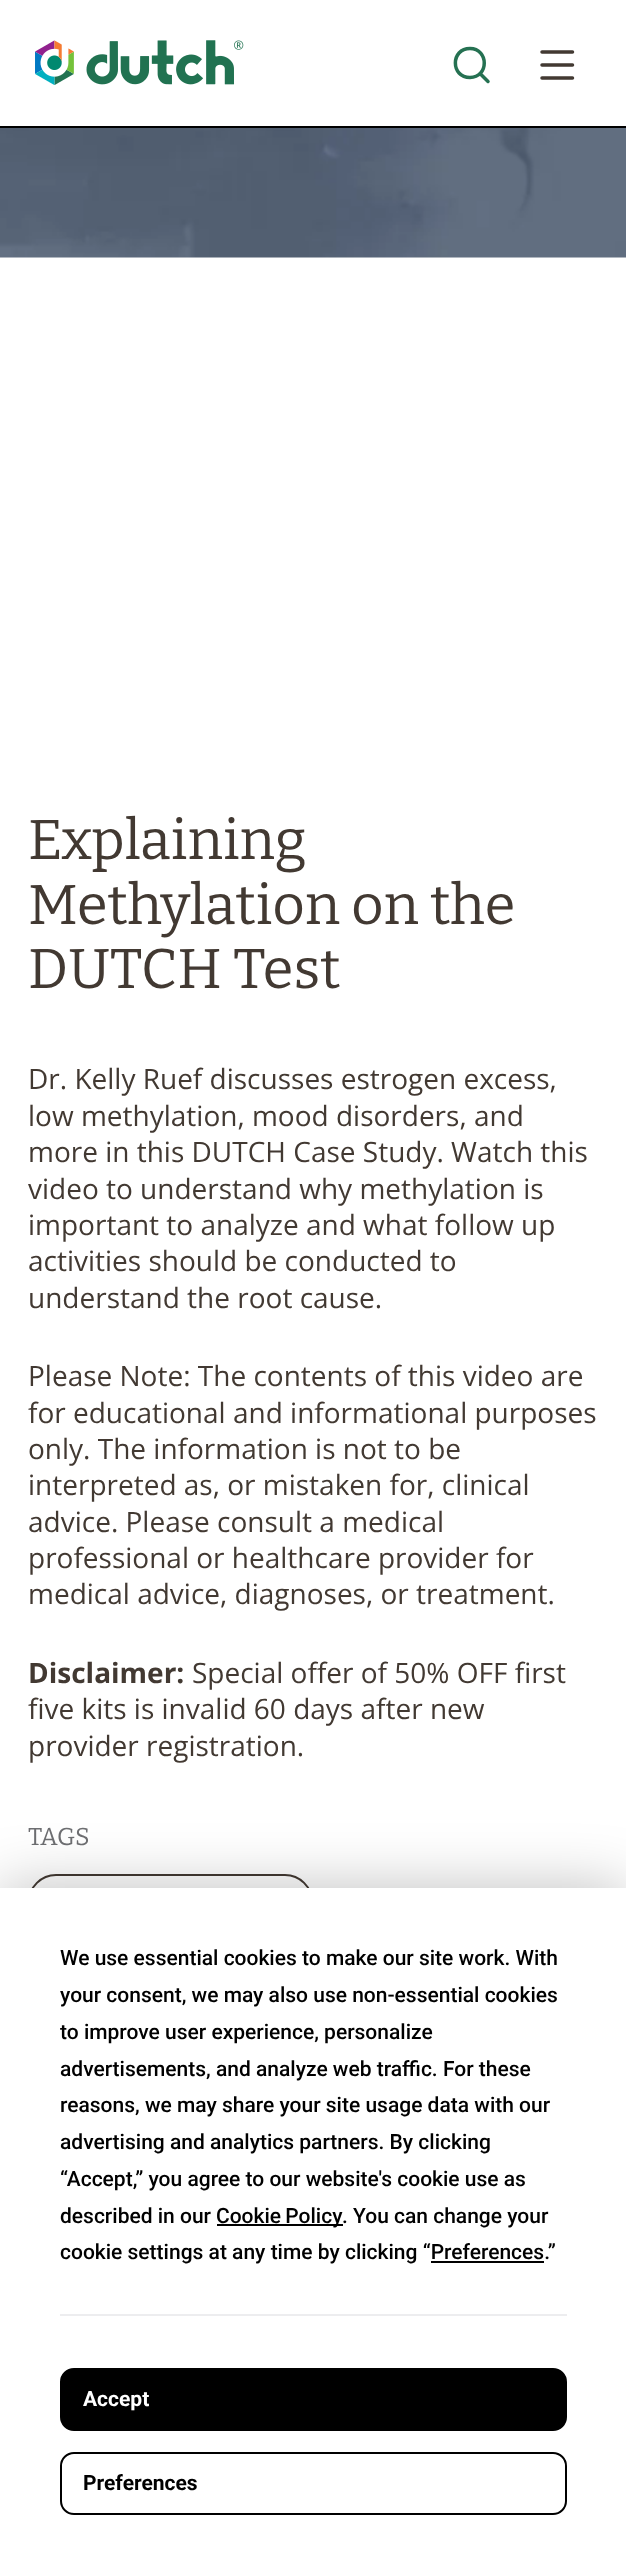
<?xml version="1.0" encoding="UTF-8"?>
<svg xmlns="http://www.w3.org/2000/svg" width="626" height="2566">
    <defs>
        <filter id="blur1" x="-50%" y="-200%" width="200%" height="500%"><feGaussianBlur stdDeviation="30.5"/></filter>
    </defs>
    <rect width="100%" height="100%" fill="#FFFFFF"/>
    <rect x="0" y="126" width="626" height="2" fill="#000000"/>
    <image x="35" y="40" width="209" height="45" href="img_01.png"/>
    <path d="M 470 77.5 C 489 77.5 489 48.5 470 48.5 C 450.5 48.5 450.5 77.5 470 77.5 Z M 488 81.5 L 480 73.5" fill="none" stroke="#257152" stroke-width="3.5" stroke-linecap="round" stroke-linejoin="round"/>
    <path d="M 542 52 H 572.5 M 542 65 H 572.5 M 542 78 H 572.5" fill="none" stroke="#423932" stroke-width="3.5" stroke-linecap="round"/>
    <image x="0" y="128" width="626" height="130" href="img_02.png"/>
    <text font-family="Bitter" font-size="56" fill="#423932">
        <tspan x="28" y="859">Explaining</tspan>
        <tspan x="28" y="924">Methylation on the</tspan>
        <tspan x="28" y="988">DUTCH Test</tspan>
    </text>
    <text font-family="Open Sans" font-size="28" fill="#423932">
        <tspan x="28" y="1089">Dr. Kelly Ruef discusses estrogen excess,</tspan>
        <tspan x="28" y="1126">low methylation, mood disorders, and</tspan>
        <tspan x="28" y="1162">more in this DUTCH Case Study. Watch this</tspan>
        <tspan x="28" y="1199">video to understand why methylation is</tspan>
        <tspan x="28" y="1235">important to analyze and what follow up</tspan>
        <tspan x="28" y="1271">activities should be conducted to</tspan>
        <tspan x="28" y="1308">understand the root cause.</tspan>
    </text>
    <text font-family="Open Sans" font-size="28" fill="#423932">
        <tspan x="28" y="1386">Please Note: The contents of this video are</tspan>
        <tspan x="28" y="1423">for educational and informational purposes</tspan>
        <tspan x="28" y="1459">only. The information is not to be</tspan>
        <tspan x="28" y="1495">interpreted as, or mistaken for, clinical</tspan>
        <tspan x="28" y="1532">advice. Please consult a medical</tspan>
        <tspan x="28" y="1568">professional or healthcare provider for</tspan>
        <tspan x="28" y="1604">medical advice, diagnoses, or treatment.</tspan>
    </text>
    <text x="28" y="1683" font-family="Open Sans" font-size="28" font-weight="700" fill="#423932">Disclaimer:</text>
    <text x="192" y="1683" font-family="Open Sans" font-size="28" fill="#423932">Special offer of 50% OFF first</text>
    <text font-family="Open Sans" font-size="28" fill="#423932">
        <tspan x="28" y="1719">five kits is invalid 60 days after new</tspan>
        <tspan x="28" y="1756">provider registration.</tspan>
    </text>
    <text x="28" y="1845" font-family="Bitter" font-size="24.5" fill="#6D6E71">TAGS</text>
    <rect x="29" y="1875" width="283" height="54" rx="27" fill="none" stroke="#423932" stroke-width="2"/>
    <rect x="0" y="1888" width="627" height="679" fill="#000000" fill-opacity="0.25" filter="url(#blur1)"/>
    <rect x="0" y="1888" width="626" height="678" fill="#FFFFFF"/>
    <text font-family="Roboto" font-size="21" font-weight="500" fill="#000000">
        <tspan x="60" y="1965">We use essential cookies to make our site work. With</tspan>
        <tspan x="60" y="2002">your consent, we may also use non-essential cookies</tspan>
        <tspan x="60" y="2039">to improve user experience, personalize</tspan>
        <tspan x="60" y="2076">advertisements, and analyze web traffic. For these</tspan>
        <tspan x="60" y="2112">reasons, we may share your site usage data with our</tspan>
        <tspan x="60" y="2149">advertising and analytics partners. By clicking</tspan>
        <tspan x="60" y="2186">“Accept,” you agree to our website's cookie use as</tspan>
        <tspan x="60" y="2223">described in our</tspan>
    </text>
    <rect x="217" y="2224" width="126" height="2" fill="#000000"/>
    <text x="216" y="2223" word-spacing="-1" font-family="Roboto" font-size="21" font-weight="500" fill="#000000">Cookie Policy</text>
    <text x="342" y="2223" font-family="Roboto" font-size="21" font-weight="500" fill="#000000">. You can change your</text>
    <text x="60" y="2259" font-family="Roboto" font-size="21" font-weight="500" fill="#000000">cookie settings at any time by clicking “Preferences.”</text>
    <rect x="431" y="2261" width="113" height="2" fill="#000000"/>
    <rect x="60" y="2314" width="507" height="2" fill="#EDEDEF"/>
    <rect x="61" y="2369" width="505" height="61" rx="13" fill="#000000" stroke="#000000" stroke-width="2"/>
    <text x="83" y="2406" font-family="Roboto" font-size="21" font-weight="700" fill="#FFFFFF">Accept</text>
    <rect x="61" y="2453" width="505" height="61" rx="13" fill="none" stroke="#000000" stroke-width="2"/>
    <text x="83" y="2490" font-family="Roboto" font-size="21" font-weight="700" fill="#000000">Preferences</text>
</svg>
